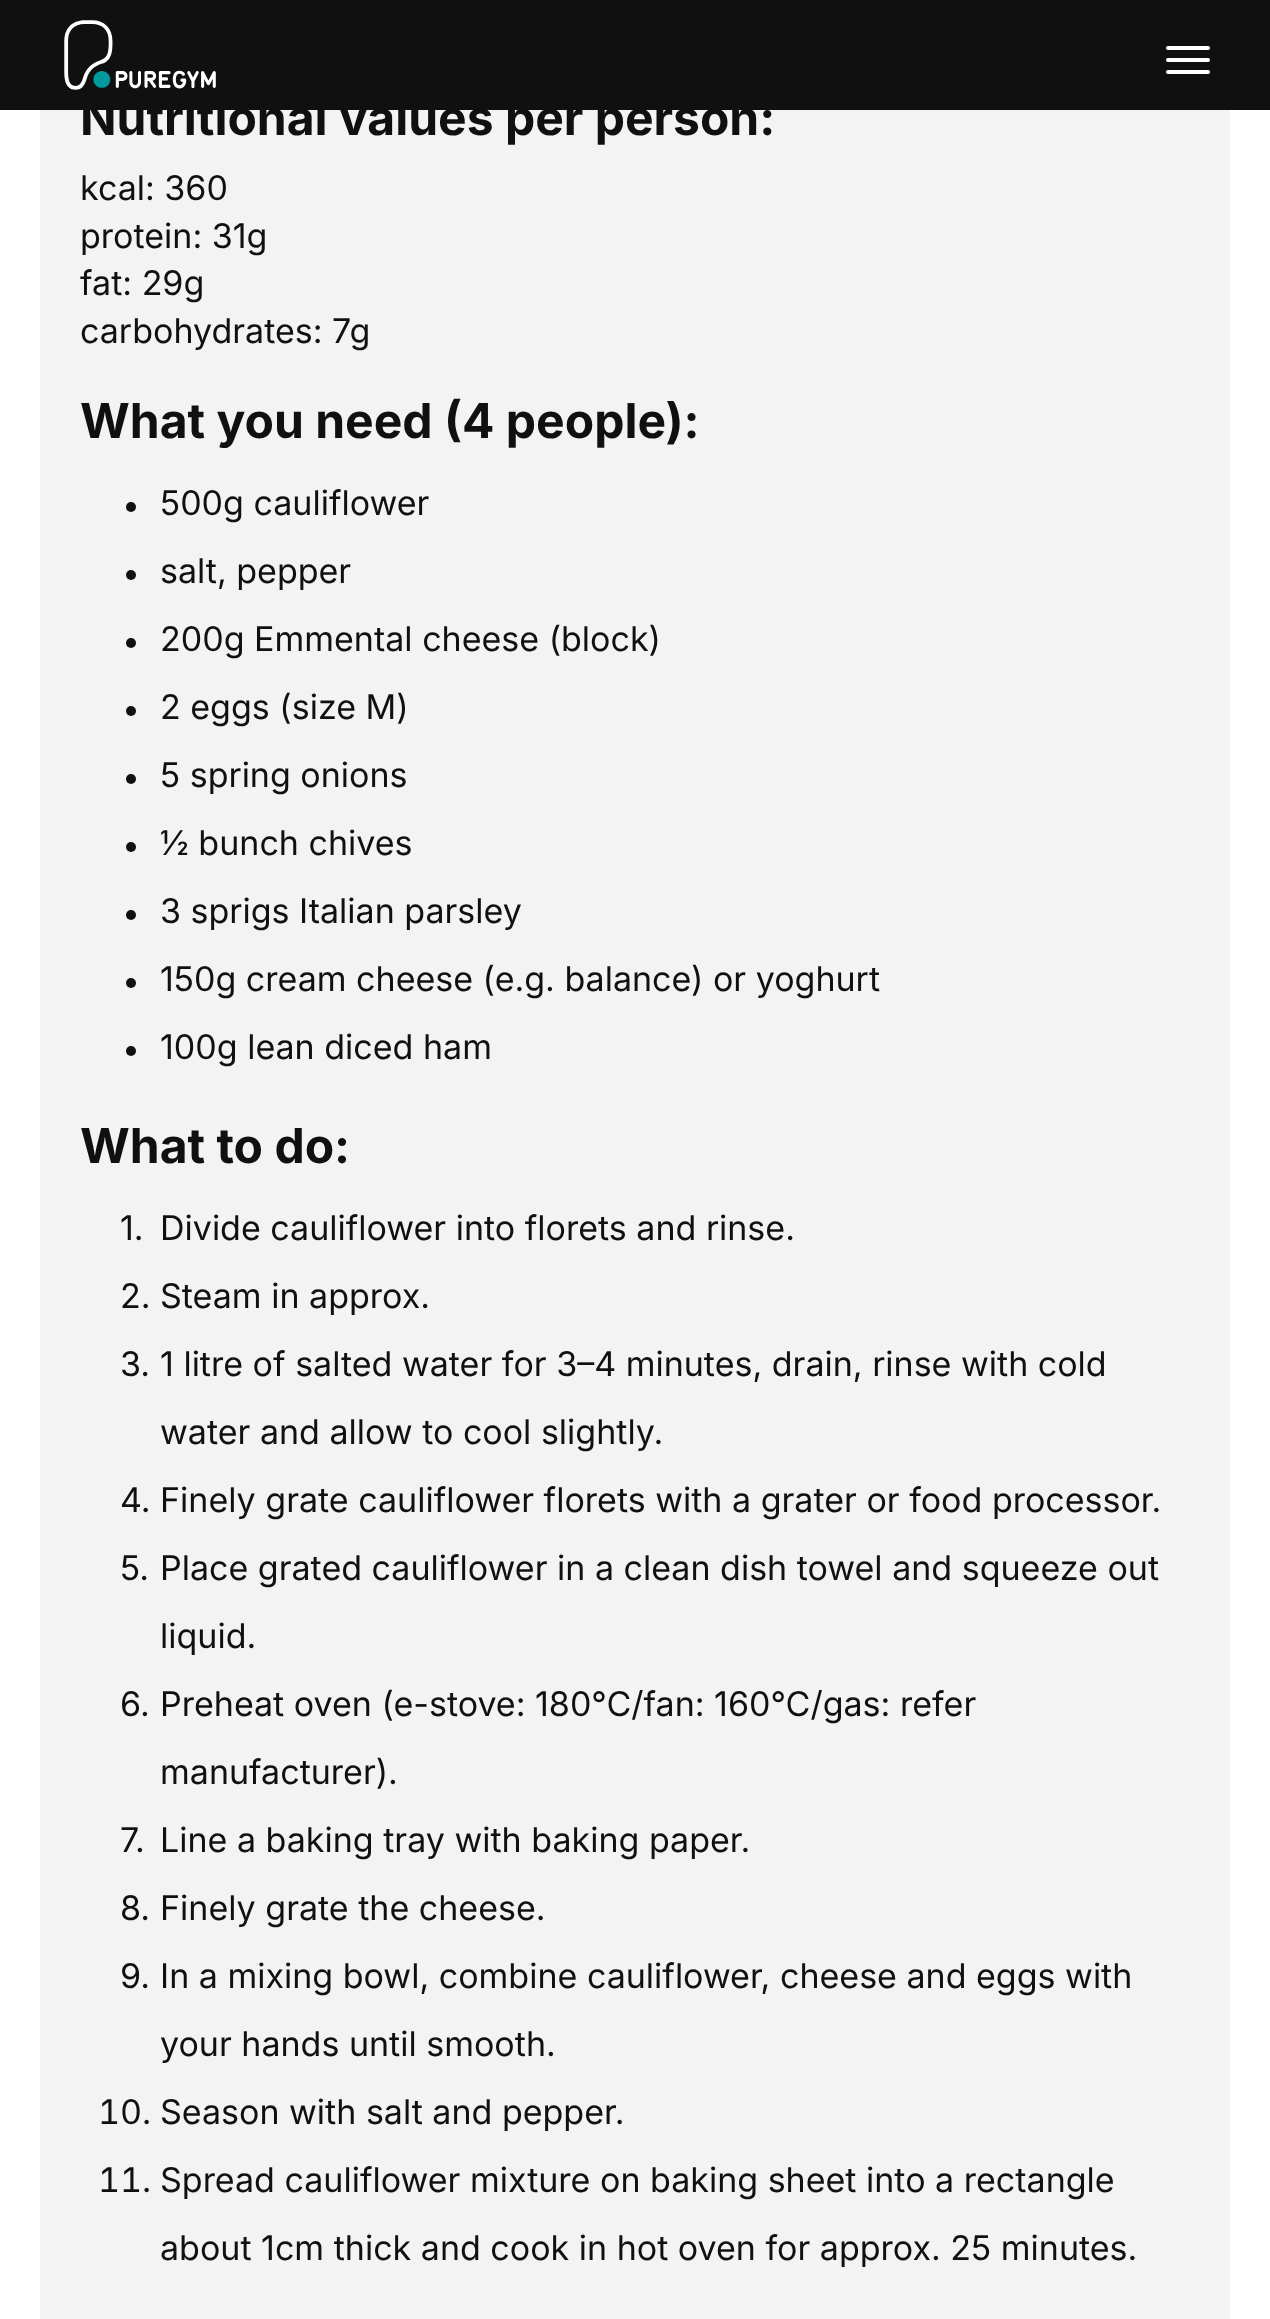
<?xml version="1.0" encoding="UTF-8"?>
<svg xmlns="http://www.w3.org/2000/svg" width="1270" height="2319">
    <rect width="100%" height="100%" fill="#FFFFFF"/>
    <rect x="0" y="0" width="1270" height="110" fill="#101010"/>
    <image x="64" y="20" width="152" height="70" href="img_01.png"/>
    <rect x="1166" y="46" width="44" height="4" rx="2" fill="#FFFFFF"/>
    <rect x="1166" y="58" width="44" height="4" rx="2" fill="#FFFFFF"/>
    <rect x="1166" y="70" width="44" height="4" rx="2" fill="#FFFFFF"/>
    <rect x="40" y="110" width="1190" height="2209" fill="#F3F3F3"/>
    <text x="80" y="135" font-family="Inter" font-size="48" font-weight="700" fill="#101010">Nutritional values per person:</text>
    <text font-family="Inter" font-size="34" fill="#101010">
        <tspan x="80" y="200">kcal: 360</tspan>
        <tspan x="80" y="248">protein: 31g</tspan>
        <tspan x="80" y="295">fat: 29g</tspan>
        <tspan x="80" y="343">carbohydrates: 7g</tspan>
    </text>
    <text x="80" y="438" font-family="Inter" font-size="48" font-weight="700" fill="#101010">What you need (4 people):</text>
    <circle cx="131" cy="507" r="5" fill="#101010"/>
    <text x="160" y="515" font-family="Inter" font-size="34" fill="#101010">500g cauliflower</text>
    <circle cx="131" cy="575" r="5" fill="#101010"/>
    <text x="160" y="583" font-family="Inter" font-size="34" fill="#101010">salt, pepper</text>
    <circle cx="131" cy="643" r="5" fill="#101010"/>
    <text x="160" y="651" font-family="Inter" font-size="34" fill="#101010">200g Emmental cheese (block)</text>
    <circle cx="131" cy="711" r="5" fill="#101010"/>
    <text x="160" y="719" font-family="Inter" font-size="34" fill="#101010">2 eggs (size M)</text>
    <circle cx="131" cy="779" r="5" fill="#101010"/>
    <text x="160" y="787" font-family="Inter" font-size="34" fill="#101010">5 spring onions</text>
    <circle cx="131" cy="847" r="5" fill="#101010"/>
    <text x="160" y="855" font-family="Inter" font-size="34" fill="#101010">½ bunch chives</text>
    <circle cx="131" cy="915" r="5" fill="#101010"/>
    <text x="160" y="923" font-family="Inter" font-size="34" fill="#101010">3 sprigs Italian parsley</text>
    <circle cx="131" cy="983" r="5" fill="#101010"/>
    <text x="160" y="991" font-family="Inter" font-size="34" fill="#101010">150g cream cheese (e.g. balance) or yoghurt</text>
    <circle cx="131" cy="1051" r="5" fill="#101010"/>
    <text x="160" y="1059" font-family="Inter" font-size="34" fill="#101010">100g lean diced ham</text>
    <text x="80" y="1163" font-family="Inter" font-size="48" font-weight="700" fill="#101010">What to do:</text>
    <text x="120" y="1240" font-family="Inter" font-size="34" fill="#101010">1.</text>
    <text x="160" y="1240" font-family="Inter" font-size="34" fill="#101010">Divide cauliflower into florets and rinse.</text>
    <text x="120" y="1308" font-family="Inter" font-size="34" fill="#101010">2.</text>
    <text x="160" y="1308" font-family="Inter" font-size="34" fill="#101010">Steam in approx.</text>
    <text x="120" y="1376" font-family="Inter" font-size="34" fill="#101010">3.</text>
    <text x="160" y="1376" font-family="Inter" font-size="34" fill="#101010">1 litre of salted water for 3–4 minutes, drain, rinse with cold</text>
    <text x="160" y="1444" font-family="Inter" font-size="34" fill="#101010">water and allow to cool slightly.</text>
    <text x="120" y="1512" font-family="Inter" font-size="34" fill="#101010">4.</text>
    <text x="160" y="1512" font-family="Inter" font-size="34" fill="#101010">Finely grate cauliflower florets with a grater or food processor.</text>
    <text x="120" y="1580" font-family="Inter" font-size="34" fill="#101010">5.</text>
    <text x="160" y="1580" font-family="Inter" font-size="34" fill="#101010">Place grated cauliflower in a clean dish towel and squeeze out</text>
    <text x="160" y="1648" font-family="Inter" font-size="34" fill="#101010">liquid.</text>
    <text x="120" y="1716" font-family="Inter" font-size="34" fill="#101010">6.</text>
    <text x="160" y="1716" font-family="Inter" font-size="34" fill="#101010">Preheat oven (e-stove: 180°C/fan: 160°C/gas: refer</text>
    <text x="160" y="1784" font-family="Inter" font-size="34" fill="#101010">manufacturer).</text>
    <text x="120" y="1852" font-family="Inter" font-size="34" fill="#101010">7.</text>
    <text x="160" y="1852" font-family="Inter" font-size="34" fill="#101010">Line a baking tray with baking paper.</text>
    <text x="120" y="1920" font-family="Inter" font-size="34" fill="#101010">8.</text>
    <text x="160" y="1920" font-family="Inter" font-size="34" fill="#101010">Finely grate the cheese.</text>
    <text x="120" y="1988" font-family="Inter" font-size="34" fill="#101010">9.</text>
    <text x="160" y="1988" font-family="Inter" font-size="34" fill="#101010">In a mixing bowl, combine cauliflower, cheese and eggs with</text>
    <text x="160" y="2056" font-family="Inter" font-size="34" fill="#101010">your hands until smooth.</text>
    <text x="98" y="2124" font-family="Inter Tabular" font-size="34" fill="#101010">10.</text>
    <text x="160" y="2124" font-family="Inter" font-size="34" fill="#101010">Season with salt and pepper.</text>
    <text x="98" y="2192" font-family="Inter Tabular" font-size="34" fill="#101010">11.</text>
    <text x="160" y="2192" font-family="Inter" font-size="34" fill="#101010">Spread cauliflower mixture on baking sheet into a rectangle</text>
    <text x="160" y="2260" font-family="Inter" font-size="34" fill="#101010">about 1cm thick and cook in hot oven for approx. 25 minutes.</text>
</svg>
